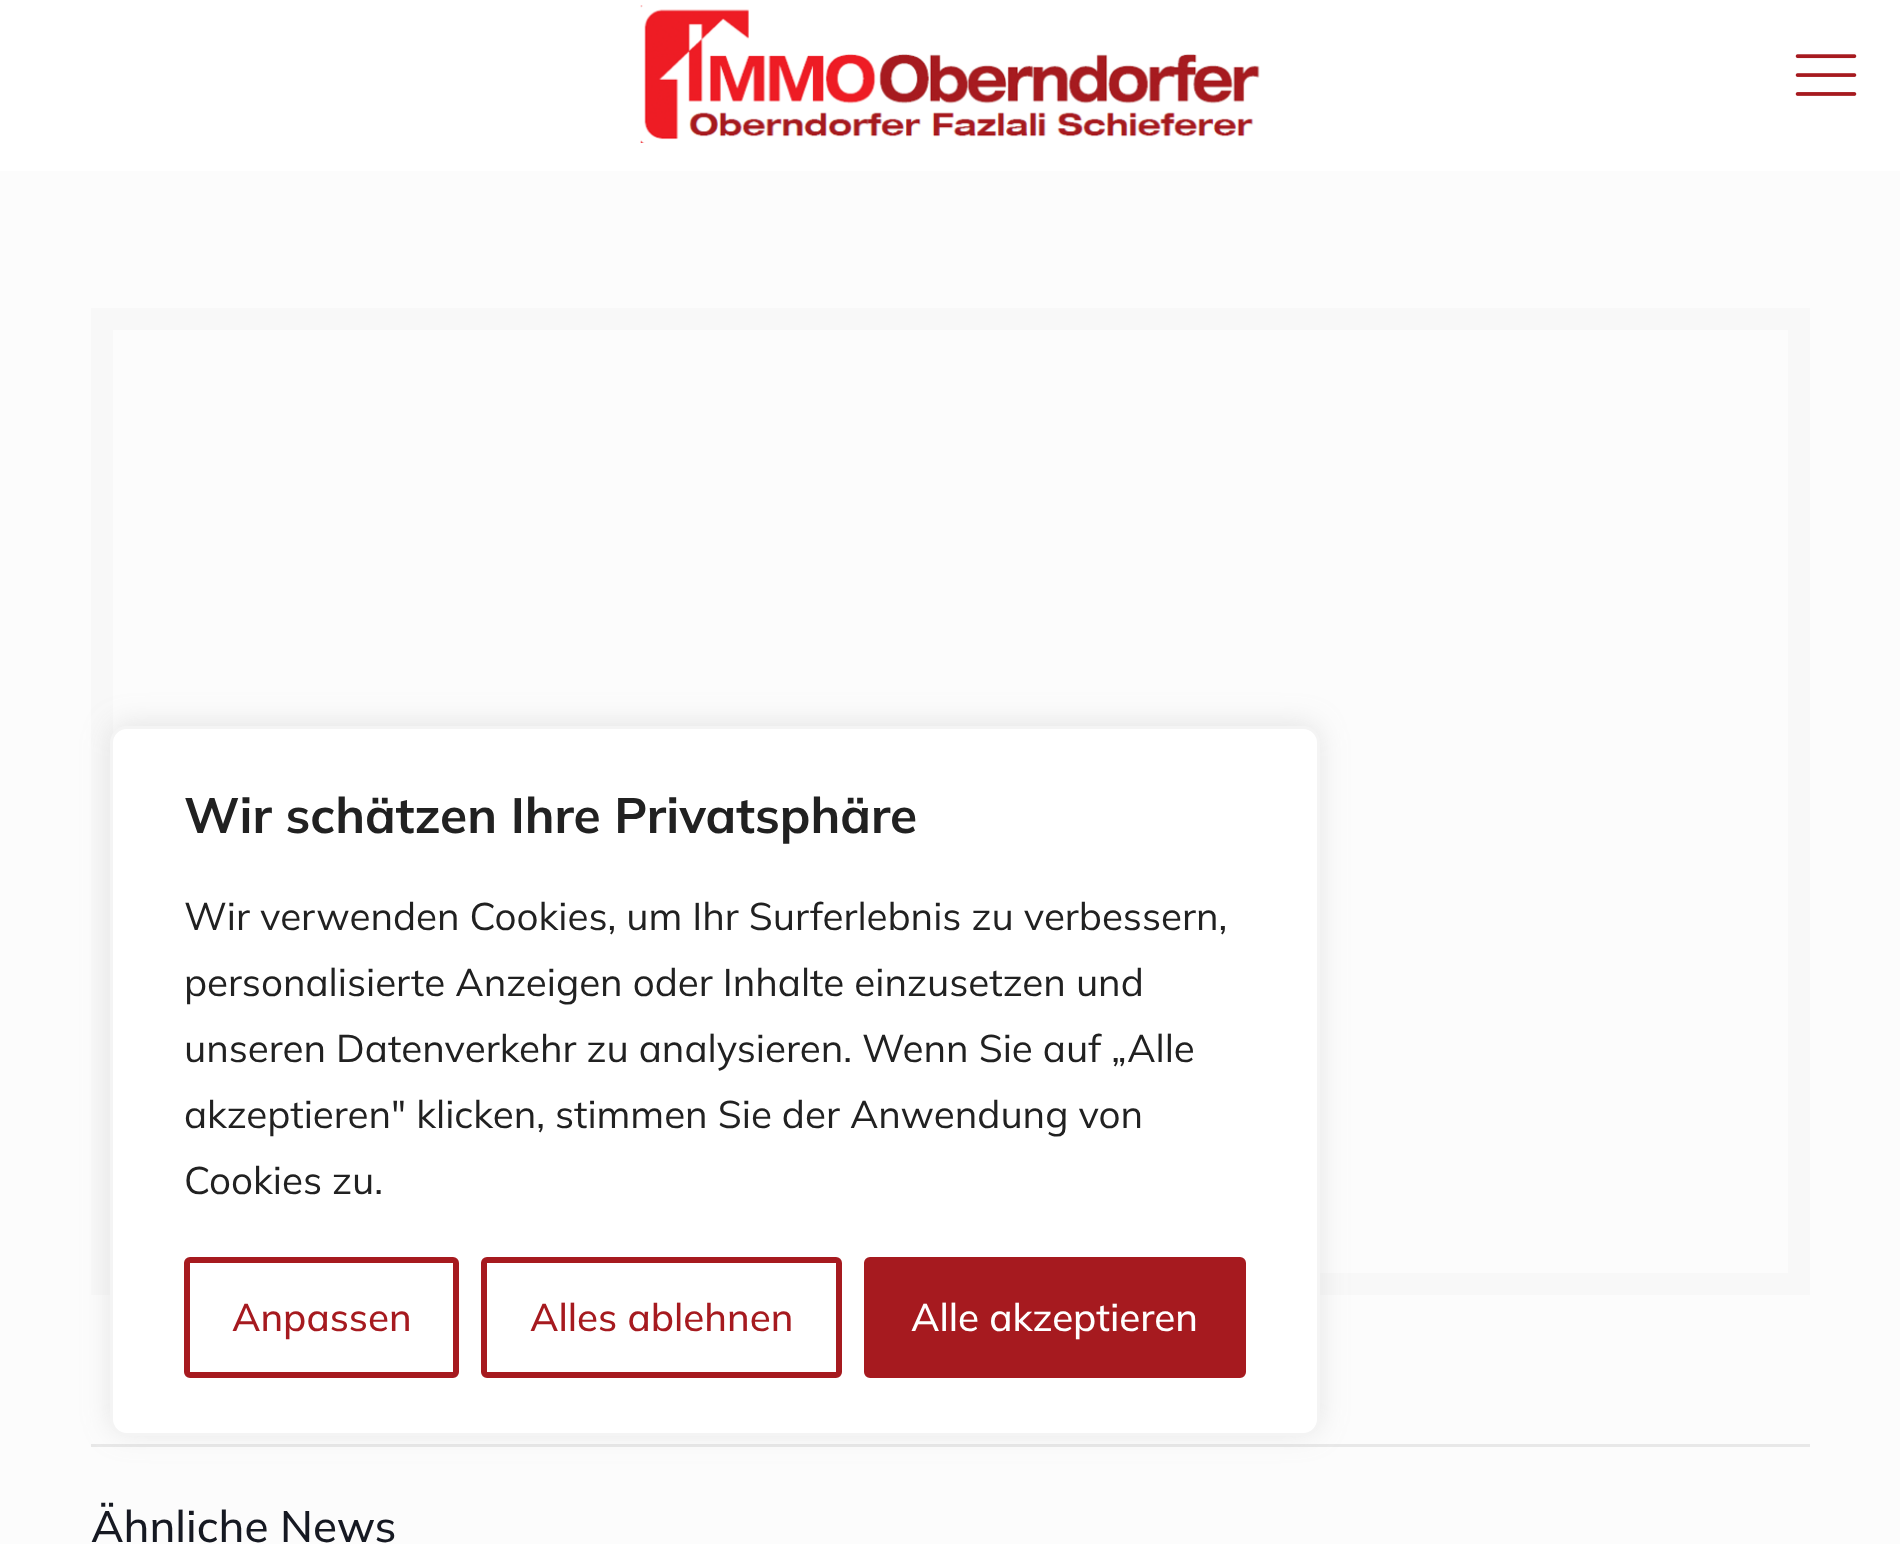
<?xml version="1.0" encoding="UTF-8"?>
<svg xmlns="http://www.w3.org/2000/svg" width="1900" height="1544">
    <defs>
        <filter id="blur1" x="-50%" y="-200%" width="200%" height="500%"><feGaussianBlur stdDeviation="14"/></filter>
    </defs>
    <rect width="100%" height="100%" fill="#FCFCFC"/>
    <rect x="102" y="319" width="1697" height="965" fill="none" stroke="#F8F8F8" stroke-width="22"/>
    <rect x="91" y="1444" width="1719" height="3" fill="#E8E8E8"/>
    <rect x="110" y="723" width="1210" height="710" rx="17" fill="#ACABAB" fill-opacity="0.3" filter="url(#blur1)"/>
    <rect x="111.5" y="727.5" width="1207" height="707" rx="15.5" fill="#FFFFFF" stroke="#F4F4F4" stroke-width="3"/>
    <text x="184" y="833" font-family="Mulish" font-size="49.5" font-weight="700" fill="#212121">Wir schätzen Ihre Privatsphäre</text>
    <text font-family="Mulish" font-size="38.5" fill="#212121">
        <tspan x="184" y="930">Wir verwenden Cookies, um Ihr Surferlebnis zu verbessern,</tspan>
        <tspan x="184" y="996">personalisierte Anzeigen oder Inhalte einzusetzen und</tspan>
        <tspan x="184" y="1062">unseren Datenverkehr zu analysieren. Wenn Sie auf „Alle</tspan>
        <tspan x="184" y="1128">akzeptieren" klicken, stimmen Sie der Anwendung von</tspan>
        <tspan x="184" y="1194">Cookies zu.</tspan>
    </text>
    <rect x="187" y="1260" width="269" height="115" rx="3" fill="none" stroke="#A61A1F" stroke-width="6"/>
    <text x="232" y="1331" font-family="Mulish" font-size="38.5" font-weight="500" fill="#A61A1F">Anpassen</text>
    <rect x="484" y="1260" width="355" height="115" rx="3" fill="none" stroke="#A61A1F" stroke-width="6"/>
    <text x="530" y="1331" font-family="Mulish" font-size="38.5" font-weight="500" fill="#A61A1F">Alles ablehnen</text>
    <rect x="867" y="1260" width="376" height="115" rx="3" fill="#A61A1F" stroke="#A61A1F" stroke-width="6"/>
    <text x="911" y="1331" font-family="Mulish" font-size="38.5" font-weight="500" fill="#FFFFFF">Alle akzeptieren</text>
    <rect x="0" y="0" width="1900" height="171" fill="#FFFFFF"/>
    <image x="640" y="5" width="620" height="138" href="img_01.png"/>
    <image x="1795" y="54" width="62" height="42" href="img_02.png"/>
    <text x="91" y="1542" font-family="Mulish" font-size="44" font-weight="500" fill="#161922">Ähnliche News</text>
</svg>
